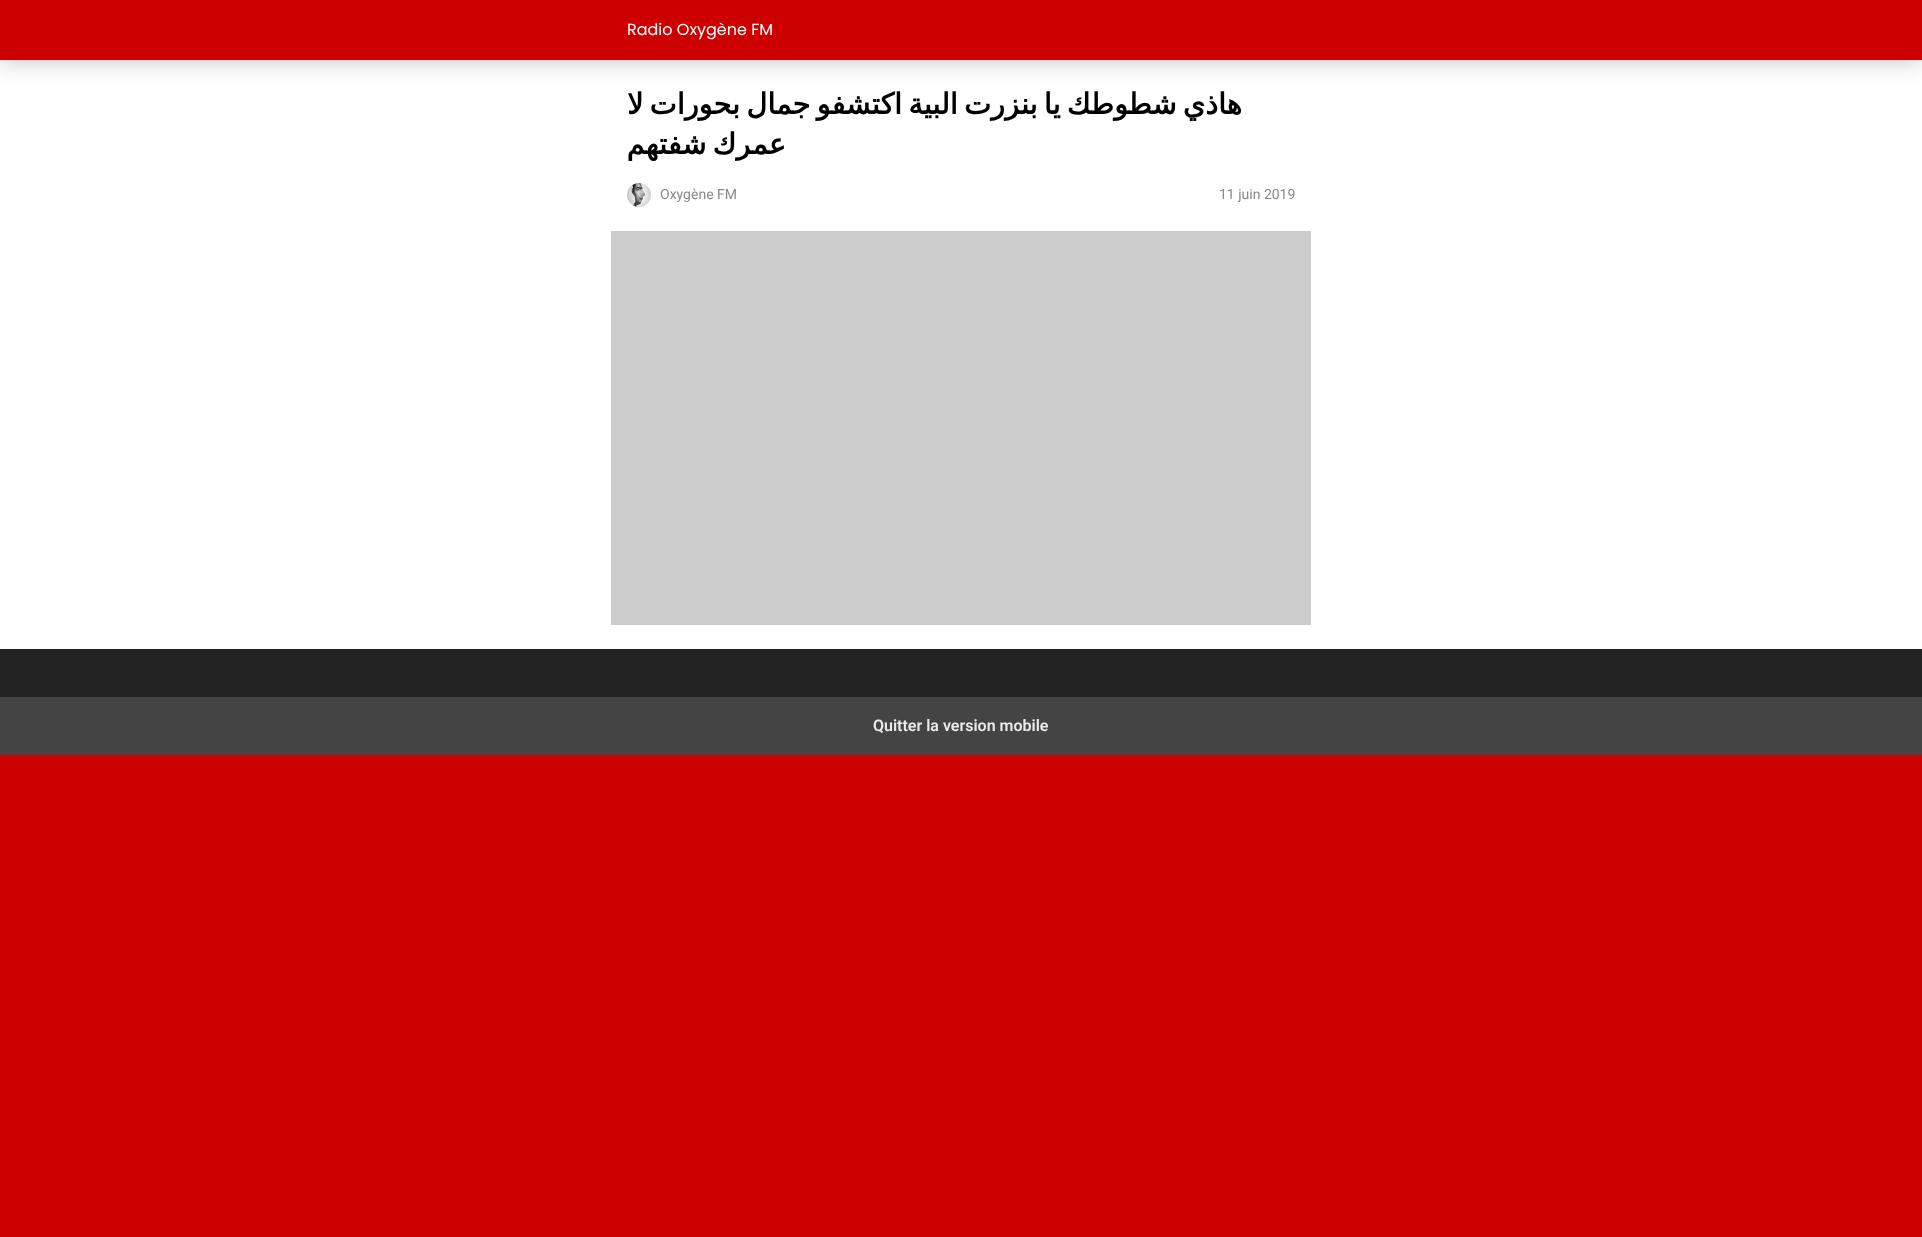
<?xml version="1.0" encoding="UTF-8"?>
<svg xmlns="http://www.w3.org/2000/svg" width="1922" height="1237">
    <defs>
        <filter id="blur1" x="-50%" y="-200%" width="200%" height="500%"><feGaussianBlur stdDeviation="12"/></filter>
    </defs>
    <rect width="100%" height="100%" fill="#CC0000"/>
    <rect x="0" y="60" width="1922" height="589" fill="#FFFFFF"/>
    <rect x="0" y="0" width="1922" height="60" fill="#000000" fill-opacity="0.25" filter="url(#blur1)"/>
    <rect x="0" y="0" width="1922" height="60" fill="#CC0000"/>
    <text x="627" y="35" font-family="Poppins" font-size="16" fill="#FFFFFF">Radio Oxygène FM</text>
    <text x="1242" y="114" word-spacing="-3" font-family="DejaVu Sans" font-size="28.8" font-weight="700" direction="rtl" fill="#000000">هاذي شطوطك يا بنزرت البية اكتشفو جمال بحورات لا</text>
    <text x="786" y="154" word-spacing="-3" font-family="DejaVu Sans" font-size="28.8" font-weight="700" direction="rtl" fill="#000000">عمرك شفتهم</text>
    <image x="627" y="183" width="24" height="24" href="img_01.png"/>
    <text x="660" y="199" font-family="Roboto" font-size="14" fill="#888888">Oxygène FM</text>
    <text x="1219" y="199" font-family="Roboto" font-size="14" fill="#888888">11 juin 2019</text>
    <rect x="611" y="231" width="700" height="394" fill="#CCCCCC"/>
    <rect x="0" y="649" width="1922" height="48" fill="#222222"/>
    <rect x="0" y="697" width="1922" height="58" fill="#444444"/>
    <text x="873" y="731" font-family="Roboto" font-size="16" font-weight="600" fill="#EAEAEA">Quitter la version mobile</text>
</svg>
